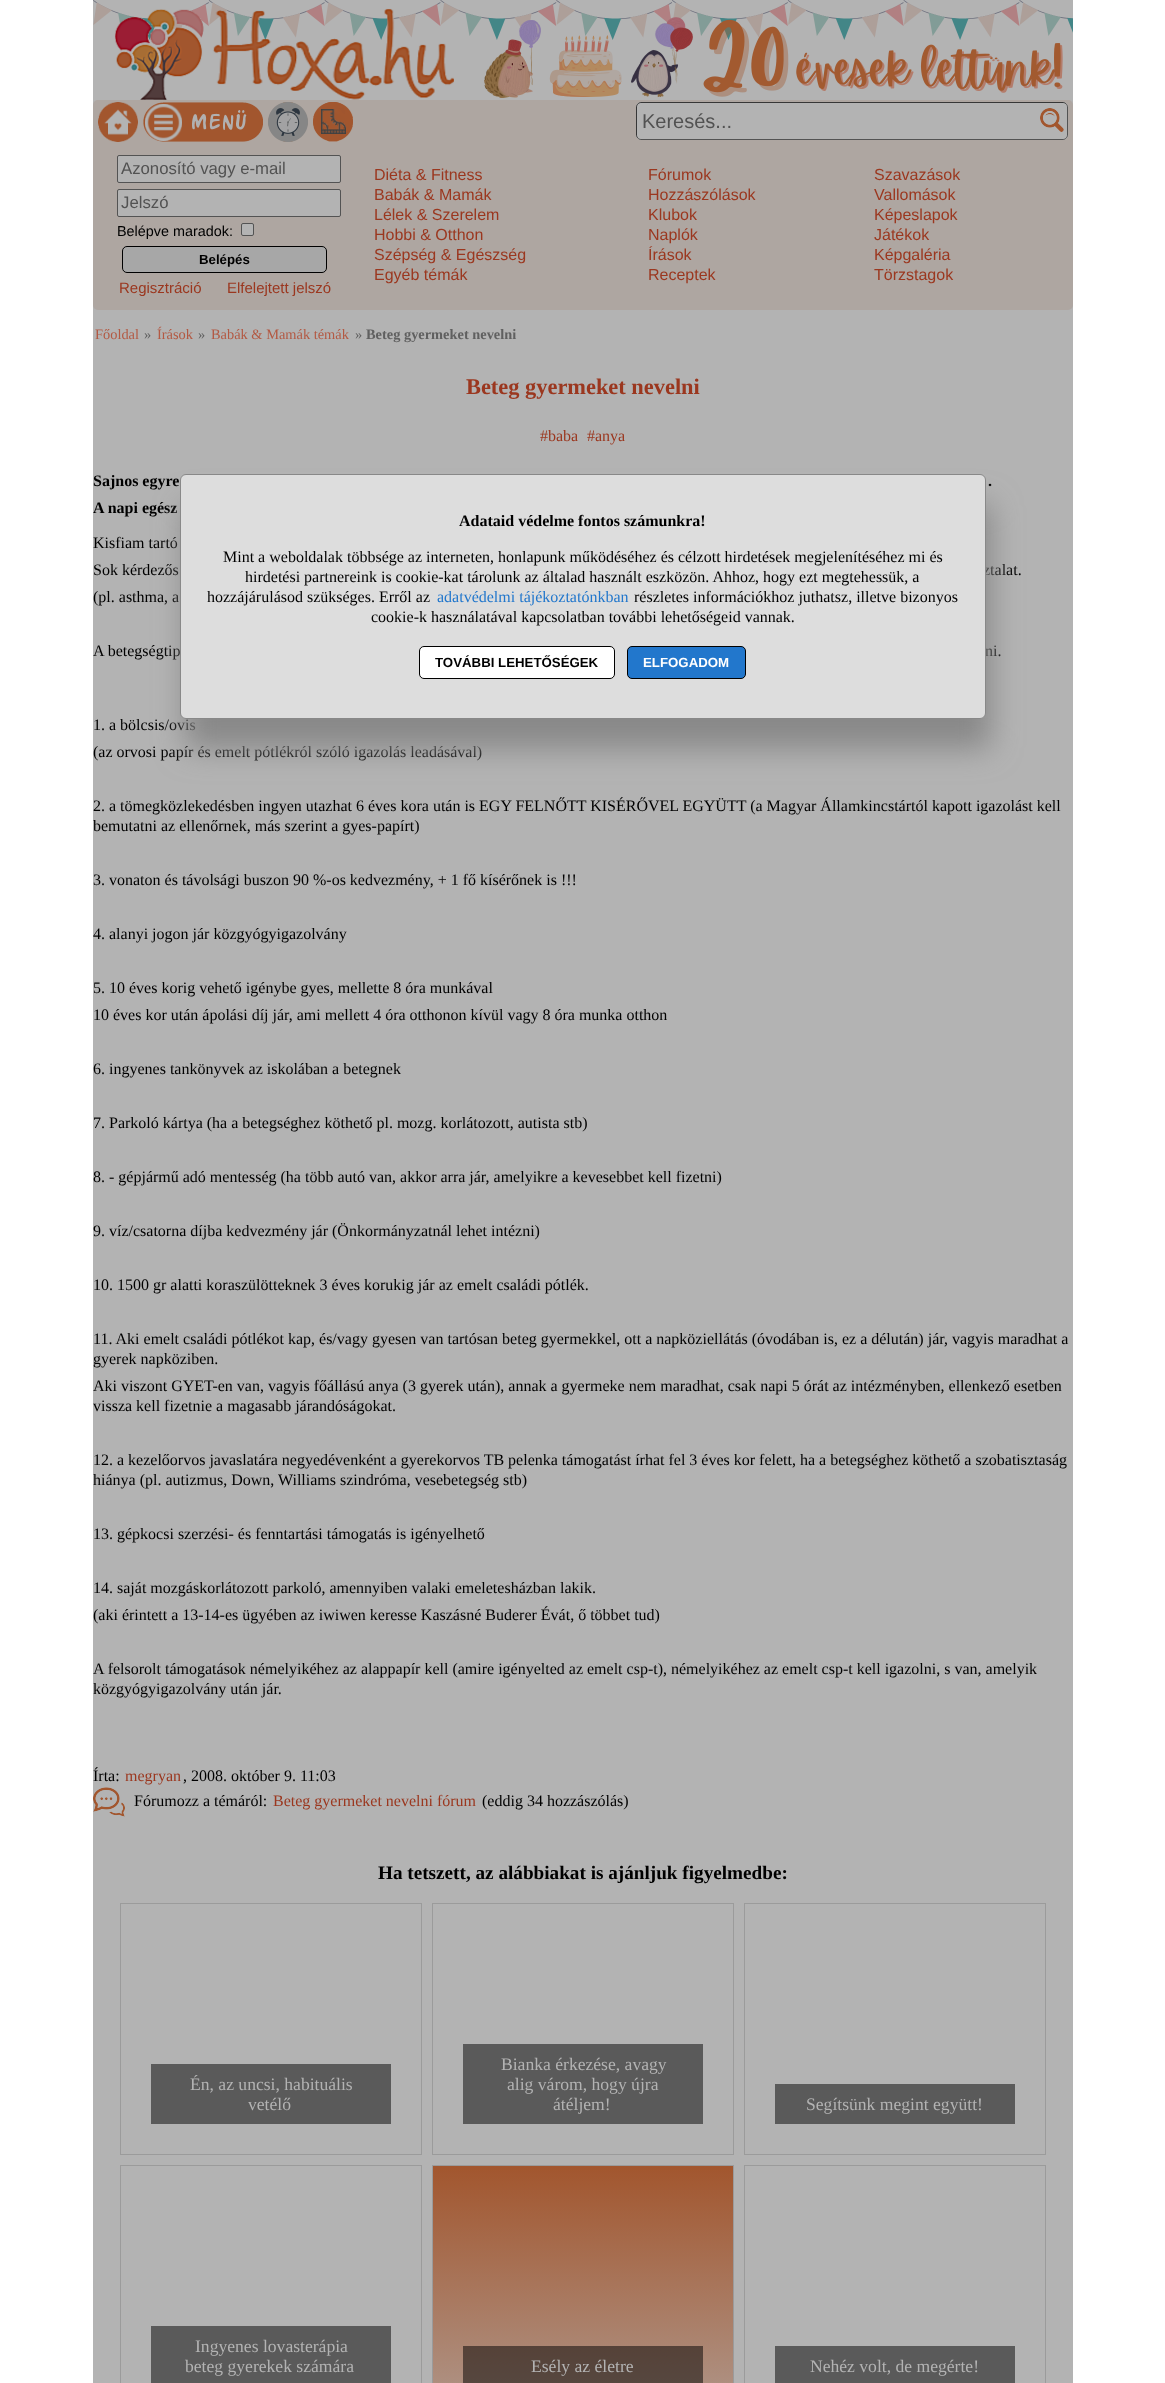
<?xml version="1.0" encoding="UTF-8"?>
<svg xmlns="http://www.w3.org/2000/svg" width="1165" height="2383">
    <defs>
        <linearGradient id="g1" gradientUnits="userSpaceOnUse" x1="583" y1="2166" x2="583" y2="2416"><stop offset="0" stop-color="#A2562E"/><stop offset="1" stop-color="#AF978B"/></linearGradient>
        <filter id="blur1" x="-50%" y="-200%" width="200%" height="500%"><feGaussianBlur stdDeviation="15"/></filter>
    </defs>
    <rect width="100%" height="100%" fill="#FFFFFF"/>
    <rect x="93" y="100" width="980" height="2283" fill="#B3B3B3"/>
    <image x="93" y="0" width="980" height="100" href="img_01.png"/>
    <rect x="93" y="100" width="980" height="210" rx="5" fill="#AEA6A1"/>
    <image x="98" y="102" width="40" height="40" href="img_02.png"/>
    <image x="143" y="102" width="120" height="40" href="img_03.png"/>
    <image x="268" y="102" width="40" height="40" href="img_04.png"/>
    <image x="313" y="102" width="40" height="40" href="img_05.png"/>
    <rect x="636" y="102" width="432" height="38" rx="5" fill="#B3B3B3"/>
    <path d="M 1066 104 C 1067 104.5 1067.5 106 1067.5 107 V 135 C 1067.5 136 1067 137.5 1066 138 C 1065.5 139 1064 139.5 1063 139.5 H 641 C 640 139.5 638.5 139 638 138" fill="none" stroke="#535353"/>
    <path d="M 638 138 C 637 137.5 636.5 136 636.5 135 V 107 C 636.5 106 637 104.5 638 104 C 638.5 103 640 102.5 641 102.5 H 1063 C 1064 102.5 1065.5 103 1066 104" fill="none" stroke="#373737"/>
    <text x="642" y="128" font-family="Liberation Sans" font-size="20" fill="#525252">Keresés...</text>
    <image x="1040" y="108" width="24" height="24" href="img_06.png"/>
    <rect x="117.5" y="155.5" width="223" height="27" rx="1.5" fill="#B3B3B3" stroke="#535353"/>
    <text x="121" y="174" font-family="Liberation Sans" font-size="16.75" fill="#525252">Azonosító vagy e-mail</text>
    <rect x="117.5" y="189.5" width="223" height="27" rx="1.5" fill="#B3B3B3" stroke="#535353"/>
    <text x="121" y="208" font-family="Liberation Sans" font-size="16.75" fill="#525252">Jelszó</text>
    <text x="117" y="236" font-family="Liberation Sans" font-size="14.4" fill="#000000">Belépve maradok:</text>
    <rect x="241.5" y="223.5" width="12" height="12" rx="1.5" fill="#B3B3B3" stroke="#535353"/>
    <rect x="122.5" y="246.5" width="204" height="26" rx="4.5" fill="#A7A7A7" stroke="#000000"/>
    <text x="199" y="264" font-family="Liberation Sans" font-size="13.25" font-weight="700" fill="#000000">Belépés</text>
    <text x="119" y="293" font-family="Liberation Sans" font-size="15" fill="#9B371F">Regisztráció</text>
    <text x="227" y="293" font-family="Liberation Sans" font-size="15" fill="#9B371F">Elfelejtett jelszó</text>
    <text font-family="Liberation Sans" font-size="16" fill="#9B371F">
        <tspan x="374" y="180">Diéta &amp; Fitness</tspan>
        <tspan x="374" y="200">Babák &amp; Mamák</tspan>
        <tspan x="374" y="220">Lélek &amp; Szerelem</tspan>
        <tspan x="374" y="240">Hobbi &amp; Otthon</tspan>
        <tspan x="374" y="260">Szépség &amp; Egészség</tspan>
        <tspan x="374" y="280">Egyéb témák</tspan>
    </text>
    <text font-family="Liberation Sans" font-size="16" fill="#9B371F">
        <tspan x="648" y="180">Fórumok</tspan>
        <tspan x="648" y="200">Hozzászólások</tspan>
        <tspan x="648" y="220">Klubok</tspan>
        <tspan x="648" y="240">Naplók</tspan>
        <tspan x="648" y="260">Írások</tspan>
        <tspan x="648" y="280">Receptek</tspan>
    </text>
    <text font-family="Liberation Sans" font-size="16" fill="#9B371F">
        <tspan x="874" y="180">Szavazások</tspan>
        <tspan x="874" y="200">Vallomások</tspan>
        <tspan x="874" y="220">Képeslapok</tspan>
        <tspan x="874" y="240">Játékok</tspan>
        <tspan x="874" y="260">Képgaléria</tspan>
        <tspan x="874" y="280">Törzstagok</tspan>
    </text>
    <text x="95" y="339" font-family="Liberation Serif" font-size="14.4" fill="#B35943">Főoldal</text>
    <text x="144" y="339" font-family="Liberation Serif" font-size="14.4" fill="#606060">»</text>
    <text x="157" y="339" font-family="Liberation Serif" font-size="14.4" fill="#B35943">Írások</text>
    <text x="198" y="339" font-family="Liberation Serif" font-size="14.4" fill="#606060">»</text>
    <text x="211" y="339" font-family="Liberation Serif" font-size="14.4" fill="#B35943">Babák &amp; Mamák témák</text>
    <text x="355" y="339" font-family="Liberation Serif" font-size="14.4" fill="#606060">»</text>
    <text x="366" y="339" font-family="Liberation Serif" font-size="14.4" font-weight="700" fill="#606060">Beteg gyermeket nevelni</text>
    <text x="466" y="394" font-family="Liberation Serif" font-size="22.4" font-weight="700" fill="#9B371F">Beteg gyermeket nevelni</text>
    <text x="540" y="441" font-family="Liberation Serif" font-size="16" fill="#9B371F">#baba</text>
    <text x="587" y="441" font-family="Liberation Serif" font-size="16" fill="#9B371F">#anya</text>
    <text x="93" y="486" font-family="Liberation Serif" font-size="16" font-weight="700" fill="#000000">Sajnos egyre</text>
    <text x="988" y="486" font-family="Liberation Serif" font-size="16" font-weight="700" fill="#000000">.</text>
    <text x="93" y="513" font-family="Liberation Serif" font-size="16" font-weight="700" fill="#000000">A napi egész</text>
    <text font-family="Liberation Serif" font-size="16" fill="#000000">
        <tspan x="93" y="548">Kisfiam tartó</tspan>
        <tspan x="93" y="575">Sok kérdezős</tspan>
    </text>
    <text x="983" y="575" font-family="Liberation Serif" font-size="16" fill="#000000">ztalat.</text>
    <text x="93" y="602" font-family="Liberation Serif" font-size="16" fill="#000000">(pl. asthma, a</text>
    <text x="93" y="656" font-family="Liberation Serif" font-size="16" fill="#000000">A betegségtip</text>
    <text x="985" y="656" font-family="Liberation Serif" font-size="16" fill="#000000">ni.</text>
    <text font-family="Liberation Serif" font-size="16" fill="#000000">
        <tspan x="93" y="730">1. a bölcsis/ovis</tspan>
        <tspan x="93" y="757">(az orvosi papír és emelt pótlékról szóló igazolás leadásával)</tspan>
    </text>
    <text font-family="Liberation Serif" font-size="16" fill="#000000">
        <tspan x="93" y="811">2. a tömegközlekedésben ingyen utazhat 6 éves kora után is EGY FELNŐTT KISÉRŐVEL EGYÜTT (a Magyar Államkincstártól kapott igazolást kell</tspan>
        <tspan x="93" y="831">bemutatni az ellenőrnek, más szerint a gyes-papírt)</tspan>
    </text>
    <text x="93" y="885" font-family="Liberation Serif" font-size="16" fill="#000000">3. vonaton és távolsági buszon 90 %-os kedvezmény, + 1 fő kísérőnek is !!!</text>
    <text x="93" y="939" font-family="Liberation Serif" font-size="16" fill="#000000">4. alanyi jogon jár közgyógyigazolvány</text>
    <text font-family="Liberation Serif" font-size="16" fill="#000000">
        <tspan x="93" y="993">5. 10 éves korig vehető igénybe gyes, mellette 8 óra munkával</tspan>
        <tspan x="93" y="1020">10 éves kor után ápolási díj jár, ami mellett 4 óra otthonon kívül vagy 8 óra munka otthon</tspan>
    </text>
    <text x="93" y="1074" font-family="Liberation Serif" font-size="16" fill="#000000">6. ingyenes tankönyvek az iskolában a betegnek</text>
    <text x="93" y="1128" font-family="Liberation Serif" font-size="16" fill="#000000">7. Parkoló kártya (ha a betegséghez köthető pl. mozg. korlátozott, autista stb)</text>
    <text x="93" y="1182" font-family="Liberation Serif" font-size="16" fill="#000000">8. - gépjármű adó mentesség (ha több autó van, akkor arra jár, amelyikre a kevesebbet kell fizetni)</text>
    <text x="93" y="1236" font-family="Liberation Serif" font-size="16" fill="#000000">9. víz/csatorna díjba kedvezmény jár (Önkormányzatnál lehet intézni)</text>
    <text x="93" y="1290" font-family="Liberation Serif" font-size="16" fill="#000000">10. 1500 gr alatti koraszülötteknek 3 éves korukig jár az emelt családi pótlék.</text>
    <text font-family="Liberation Serif" font-size="16" fill="#000000">
        <tspan x="93" y="1344">11. Aki emelt családi pótlékot kap, és/vagy gyesen van tartósan beteg gyermekkel, ott a napköziellátás (óvodában is, ez a délután) jár, vagyis maradhat a</tspan>
        <tspan x="93" y="1364">gyerek napköziben.</tspan>
        <tspan x="93" y="1391">Aki viszont GYET-en van, vagyis főállású anya (3 gyerek után), annak a gyermeke nem maradhat, csak napi 5 órát az intézményben, ellenkező esetben</tspan>
        <tspan x="93" y="1411">vissza kell fizetnie a magasabb járandóságokat.</tspan>
    </text>
    <text font-family="Liberation Serif" font-size="16" fill="#000000">
        <tspan x="93" y="1465">12. a kezelőorvos javaslatára negyedévenként a gyerekorvos TB pelenka támogatást írhat fel 3 éves kor felett, ha a betegséghez köthető a szobatisztaság</tspan>
        <tspan x="93" y="1485">hiánya (pl. autizmus, Down, Williams szindróma, vesebetegség stb)</tspan>
    </text>
    <text x="93" y="1539" font-family="Liberation Serif" font-size="16" fill="#000000">13. gépkocsi szerzési- és fenntartási támogatás is igényelhető</text>
    <text font-family="Liberation Serif" font-size="16" fill="#000000">
        <tspan x="93" y="1593">14. saját mozgáskorlátozott parkoló, amennyiben valaki emeletesházban lakik.</tspan>
        <tspan x="93" y="1620">(aki érintett a 13-14-es ügyében az iwiwen keresse Kaszásné Buderer Évát, ő többet tud)</tspan>
    </text>
    <text font-family="Liberation Serif" font-size="16" fill="#000000">
        <tspan x="93" y="1674">A felsorolt támogatások némelyikéhez az alappapír kell (amire igényelted az emelt csp-t), némelyikéhez az emelt csp-t kell igazolni, s van, amelyik</tspan>
        <tspan x="93" y="1694">közgyógyigazolvány után jár.</tspan>
    </text>
    <text x="93" y="1781" font-family="Liberation Serif" font-size="16" fill="#000000">Írta:</text>
    <text x="125" y="1781" font-family="Liberation Serif" font-size="16" fill="#9B371F">megryan</text>
    <text x="183" y="1781" font-family="Liberation Serif" font-size="16" fill="#000000">, 2008. október 9. 11:03</text>
    <image x="93" y="1787" width="32" height="30" href="img_07.png"/>
    <text x="134" y="1806" font-family="Liberation Serif" font-size="16" fill="#000000">Fórumozz a témáról:</text>
    <text x="273" y="1806" font-family="Liberation Serif" font-size="16" fill="#9B371F">Beteg gyermeket nevelni fórum</text>
    <text x="482" y="1806" font-family="Liberation Serif" font-size="16" fill="#000000">(eddig 34 hozzászólás)</text>
    <text x="378" y="1879" font-family="Liberation Serif" font-size="19.2" font-weight="700" fill="#000000">Ha tetszett, az alábbiakat is ajánljuk figyelmedbe:</text>
    <rect x="120.5" y="1903.5" width="301" height="251" fill="none" stroke="#9B9B9B"/>
    <rect x="151" y="2064" width="240" height="60" fill="#5A5A5A"/>
    <text x="190" y="2090" font-family="Liberation Serif" font-size="17.6" fill="#B3B3B3">Én, az uncsi, habituális</text>
    <text x="248" y="2110" font-family="Liberation Serif" font-size="17.6" fill="#B3B3B3">vetélő</text>
    <rect x="432.5" y="1903.5" width="301" height="251" fill="none" stroke="#9B9B9B"/>
    <rect x="463" y="2044" width="240" height="80" fill="#5A5A5A"/>
    <text x="501" y="2070" font-family="Liberation Serif" font-size="17.6" fill="#B3B3B3">Bianka érkezése, avagy</text>
    <text x="507" y="2090" font-family="Liberation Serif" font-size="17.6" fill="#B3B3B3">alig várom, hogy újra</text>
    <text x="553" y="2110" font-family="Liberation Serif" font-size="17.6" fill="#B3B3B3">átéljem!</text>
    <rect x="744.5" y="1903.5" width="301" height="251" fill="none" stroke="#9B9B9B"/>
    <rect x="775" y="2084" width="240" height="40" fill="#5A5A5A"/>
    <text x="806" y="2110" font-family="Liberation Serif" font-size="17.6" fill="#B3B3B3">Segítsünk megint együtt!</text>
    <rect x="120.5" y="2165.5" width="301" height="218" fill="none" stroke="#9B9B9B"/>
    <rect x="151" y="2326" width="240" height="57" fill="#5A5A5A"/>
    <text x="195" y="2352" font-family="Liberation Serif" font-size="17.6" fill="#B3B3B3">Ingyenes lovasterápia</text>
    <text x="185" y="2372" font-family="Liberation Serif" font-size="17.6" fill="#B3B3B3">beteg gyerekek számára</text>
    <rect x="433" y="2166" width="300" height="217" fill="url(#g1)"/>
    <rect x="432.5" y="2165.5" width="301" height="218" fill="none" stroke="#9B9B9B"/>
    <rect x="463" y="2346" width="240" height="37" fill="#000000" fill-opacity="0.5"/>
    <text x="531" y="2372" font-family="Liberation Serif" font-size="17.6" fill="#B3B3B3">Esély az életre</text>
    <rect x="744.5" y="2165.5" width="301" height="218" fill="none" stroke="#9B9B9B"/>
    <rect x="775" y="2346" width="240" height="37" fill="#5A5A5A"/>
    <text x="810" y="2372" font-family="Liberation Serif" font-size="17.6" fill="#B3B3B3">Nehéz volt, de megérte!</text>
    <rect x="185" y="504" width="806" height="245" rx="6" fill="#888888" filter="url(#blur1)"/>
    <rect x="180.5" y="474.5" width="805" height="244" rx="5.5" fill="#DDDDDD" stroke="#888888"/>
    <text x="459" y="526" font-family="Liberation Serif" font-size="16" font-weight="700" fill="#000000">Adataid védelme fontos számunkra!</text>
    <text x="223" y="562" font-family="Liberation Serif" font-size="16" fill="#000000">Mint a weboldalak többsége az interneten, honlapunk működéséhez és célzott hirdetések megjelenítéséhez mi és</text>
    <text x="245" y="582" font-family="Liberation Serif" font-size="16" fill="#000000">hirdetési partnereink is cookie-kat tárolunk az általad használt eszközön. Ahhoz, hogy ezt megtehessük, a</text>
    <text x="207" y="602" font-family="Liberation Serif" font-size="16" fill="#000000">hozzájárulásod szükséges. Erről az</text>
    <text x="437" y="602" font-family="Liberation Serif" font-size="16" fill="#2277CC">adatvédelmi tájékoztatónkban</text>
    <text x="634" y="602" font-family="Liberation Serif" font-size="16" fill="#000000">részletes információkhoz juthatsz, illetve bizonyos</text>
    <text x="371" y="622" font-family="Liberation Serif" font-size="16" fill="#000000">cookie-k használatával kapcsolatban további lehetőségeid vannak.</text>
    <rect x="419.5" y="646.5" width="195" height="32" rx="4.5" fill="#FFFFFF" stroke="#000000"/>
    <text x="435" y="667" font-family="Liberation Sans" font-size="13.25" font-weight="700" fill="#000000">TOVÁBBI LEHETŐSÉGEK</text>
    <rect x="627.5" y="646.5" width="118" height="32" rx="4.5" fill="#2277CC" stroke="#000000"/>
    <text x="643" y="667" font-family="Liberation Sans" font-size="13.25" font-weight="700" fill="#FFFFFF">ELFOGADOM</text>
</svg>
